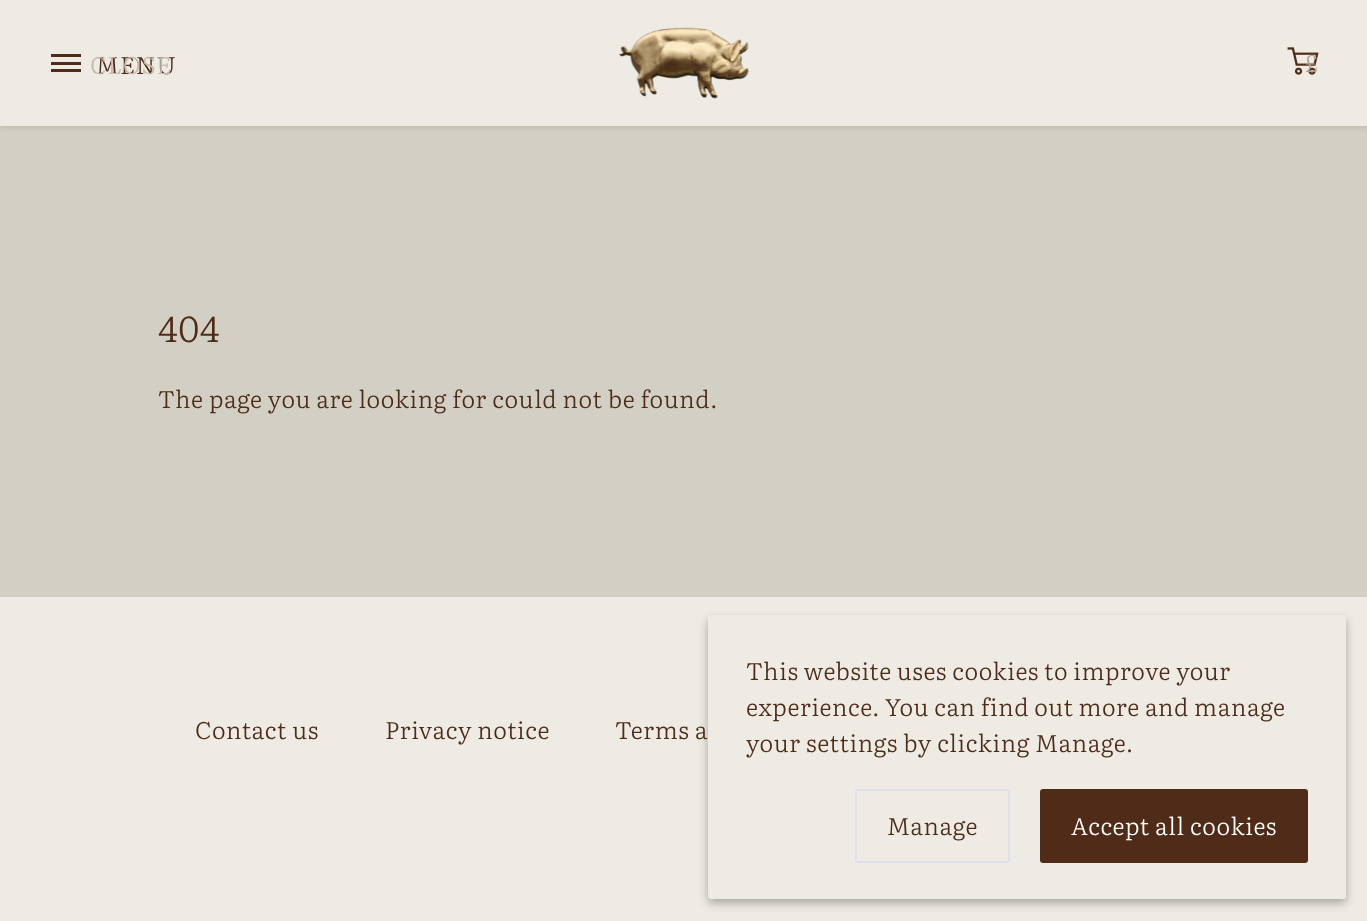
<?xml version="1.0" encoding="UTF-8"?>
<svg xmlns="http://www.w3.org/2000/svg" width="1367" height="921">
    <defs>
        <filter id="blur1" x="-50%" y="-200%" width="200%" height="500%"><feGaussianBlur stdDeviation="2"/></filter>
        <filter id="blur2" x="-50%" y="-200%" width="200%" height="500%"><feGaussianBlur stdDeviation="5"/></filter>
    </defs>
    <rect width="100%" height="100%" fill="#D2D0C4"/>
    <rect x="0" y="3" width="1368" height="126" fill="#000000" fill-opacity="0.07" filter="url(#blur1)"/>
    <rect x="0" y="0" width="1367" height="126" fill="#EDEBE3"/>
    <rect x="51" y="54" width="30" height="3" fill="#502C18"/>
    <rect x="51" y="69" width="30" height="3" fill="#502C18"/>
    <text x="96" y="74" font-family="Literata" font-size="24" font-weight="300" letter-spacing="1" fill="#502C18">MENU</text>
    <text x="90" y="74" font-family="Literata" font-size="24" font-weight="300" letter-spacing="1" fill="#C4B9AD">CLOSE</text>
    <rect x="51" y="62" width="30" height="3" fill="#502C18"/>
    <image x="619" y="27" width="130" height="72" href="img_01.png"/>
    <image x="1287" y="47" width="32" height="28" href="img_02.png"/>
    <text x="1305" y="72" font-family="Literata" font-size="24" font-weight="300" letter-spacing="1" fill="#B0A194">£</text>
    <text x="158" y="342" font-family="Literata" font-size="36" font-weight="300" letter-spacing="0.5" fill="#502C18">404</text>
    <text x="158" y="408" font-family="Literata" font-size="24" font-weight="300" letter-spacing="0.6" fill="#502C18">The page you are looking for could not be found.</text>
    <rect x="0" y="597" width="1367" height="324" fill="#EDEBE3"/>
    <text x="195" y="739" font-family="Literata" font-size="24" font-weight="300" letter-spacing="0.6" fill="#502C18">Contact us</text>
    <text x="385" y="739" font-family="Literata" font-size="24" font-weight="300" letter-spacing="0.6" fill="#502C18">Privacy notice</text>
    <text x="615" y="739" font-family="Literata" font-size="24" font-weight="300" letter-spacing="0.6" fill="#502C18">Terms a</text>
    <rect x="708" y="620" width="638" height="283" rx="3" fill="#000000" fill-opacity="0.3" filter="url(#blur2)"/>
    <rect x="708" y="615" width="638" height="284" rx="3" fill="#EDEBE3"/>
    <text font-family="Literata" font-size="24" font-weight="300" letter-spacing="0.6" fill="#502C18">
        <tspan x="746" y="680" word-spacing="-0.25">This website uses cookies to improve your</tspan>
        <tspan x="746" y="716" word-spacing="-0.25">experience. You can find out more and manage</tspan>
        <tspan x="746" y="752">your settings by clicking Manage.</tspan>
    </text>
    <rect x="856" y="790" width="153" height="72" rx="2" fill="none" stroke="#DFDFED" stroke-width="2"/>
    <text x="887" y="835" font-family="Literata" font-size="24" font-weight="300" letter-spacing="0.6" fill="#502C18">Manage</text>
    <rect x="1040" y="789" width="268" height="74" rx="3" fill="#502C18"/>
    <text x="1071" y="835" font-family="Literata" font-size="24" font-weight="300" letter-spacing="0.6" fill="#FFFFFF">Accept all cookies</text>
</svg>
